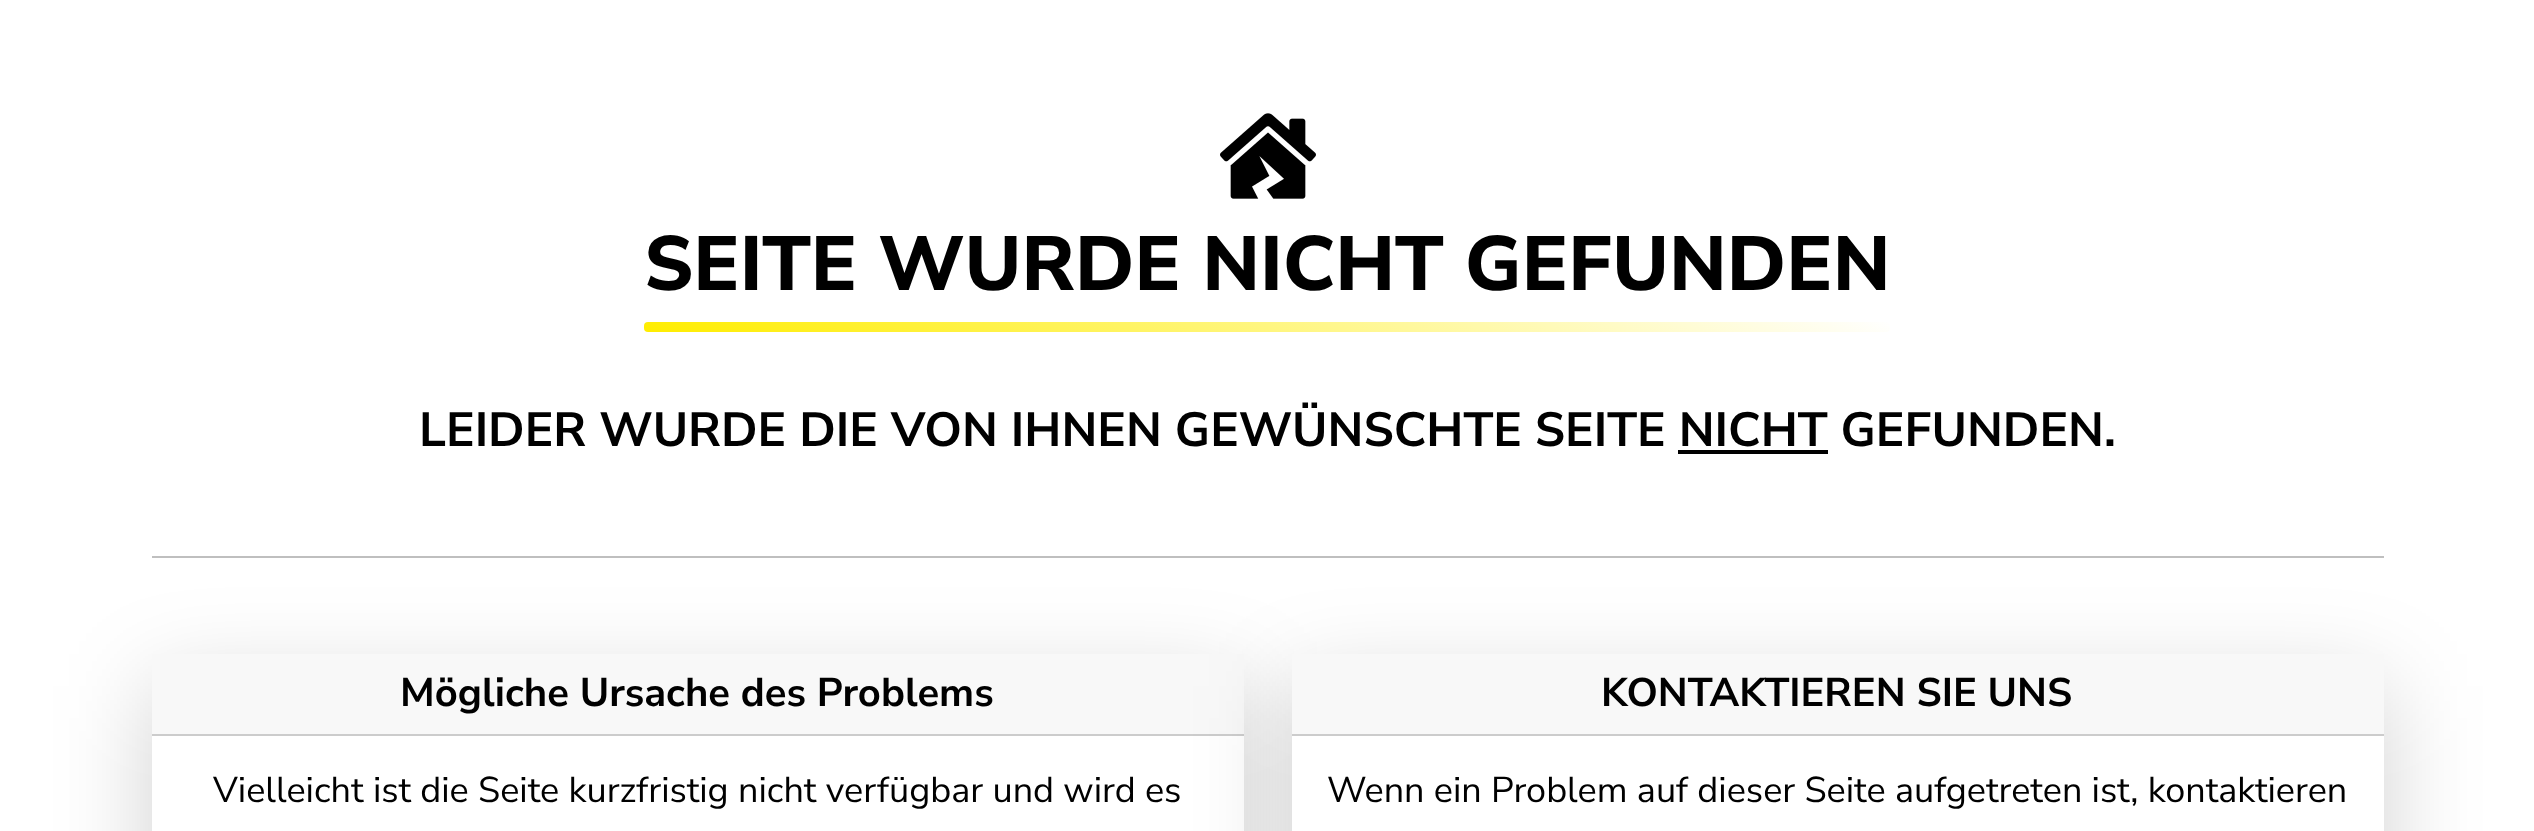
<?xml version="1.0" encoding="UTF-8"?>
<svg xmlns="http://www.w3.org/2000/svg" width="2534" height="831">
    <defs>
        <linearGradient id="g1" gradientUnits="userSpaceOnUse" x1="1154" y1="570" x2="1380" y2="84"><stop offset="0" stop-color="#FFED00"/><stop offset="1" stop-color="#FFFFFF"/></linearGradient>
        <clipPath id="clip1"><path d="M 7 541 H 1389 V 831 H 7 Z M 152 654 H 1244 V 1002 H 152 Z" clip-rule="evenodd"/></clipPath>
        <filter id="blur1" x="-50%" y="-200%" width="200%" height="500%"><feGaussianBlur stdDeviation="48"/></filter>
    </defs>
    <rect width="100%" height="100%" fill="#FFFFFF"/>
    <image x="1220" y="113" width="96" height="86" href="img_01.png"/>
    <text x="644" y="290" font-family="Nunito Sans" font-size="76.75" font-weight="800" fill="#000000">SEITE WURDE NICHT GEFUNDEN</text>
    <rect x="644" y="322" width="1246" height="10" rx="4" fill="url(#g1)"/>
    <text x="419" y="446" font-family="Nunito Sans" font-size="48" font-weight="700" fill="#000000">LEIDER WURDE DIE VON IHNEN GEWÜNSCHTE SEITE NICHT GEFUNDEN.</text>
    <rect x="1678" y="450" width="150" height="4" fill="#000000"/>
    <rect x="152" y="556" width="2232" height="2" fill="#BFBFBF"/>
    <g clip-path="url(#clip1)">
        <rect x="152" y="686" width="1092" height="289" fill="#000000" fill-opacity="0.18" filter="url(#blur1)"/>
    </g>
    <rect x="152" y="654" width="1092" height="80" fill="#F8F8F8"/>
    <rect x="152" y="734" width="1092" height="2" fill="#CCCCCC"/>
    <text x="400" y="706" font-family="Nunito Sans" font-size="40" font-weight="700" fill="#000000">Mögliche Ursache des Problems</text>
    <text x="213" y="802" font-family="Nunito Sans" font-size="36" fill="#000000">Vielleicht ist die Seite kurzfristig nicht verfügbar und wird es</text>
    <rect x="1292" y="686" width="1092" height="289" fill="#000000" fill-opacity="0.18" filter="url(#blur1)"/>
    <rect x="1292" y="736" width="1092" height="95" fill="#FFFFFF"/>
    <rect x="1292" y="654" width="1092" height="80" fill="#F8F8F8"/>
    <rect x="1292" y="734" width="1092" height="2" fill="#CCCCCC"/>
    <text x="1601" y="706" font-family="Nunito Sans" font-size="40" font-weight="700" fill="#000000">KONTAKTIEREN SIE UNS</text>
    <text x="1327" y="802" font-family="Nunito Sans" font-size="36" fill="#000000">Wenn ein Problem auf dieser Seite aufgetreten ist, kontaktieren</text>
</svg>
